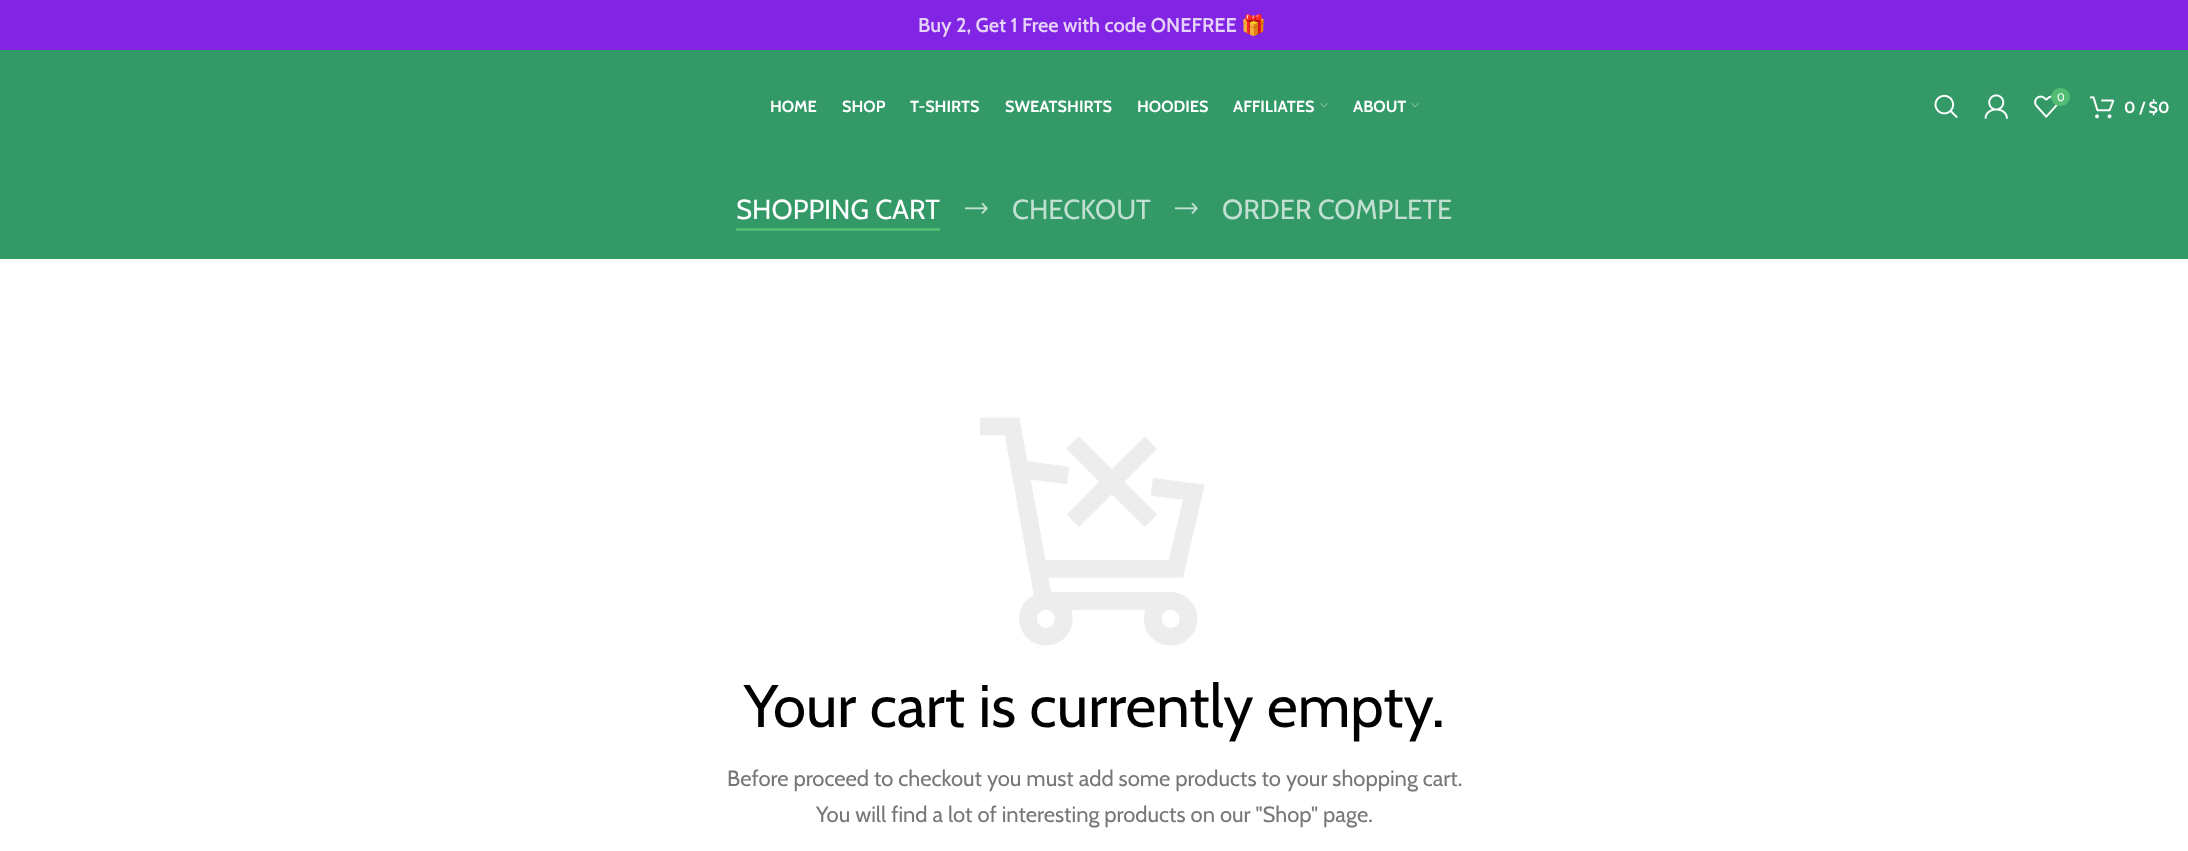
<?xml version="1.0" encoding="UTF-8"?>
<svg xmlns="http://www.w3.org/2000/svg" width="2188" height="851">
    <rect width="100%" height="100%" fill="#FFFFFF"/>
    <rect x="0" y="0" width="2188" height="50" fill="#8224E3"/>
    <text x="918" y="32" font-family="Cabin" font-size="20" font-weight="600" fill="#E6D3F9">Buy 2, Get 1 Free with code ONEFREE</text>
    <text x="1241" y="32" font-family="Noto Color Emoji" font-size="20" font-weight="700" fill="#E6D3F9">🎁</text>
    <rect x="0" y="50" width="2188" height="209" fill="#329967"/>
    <text x="770" y="112" font-family="Cabin" font-size="16.25" font-weight="700" fill="#FFFFFF">HOME</text>
    <text x="842" y="112" font-family="Cabin" font-size="16.25" font-weight="700" fill="#FFFFFF">SHOP</text>
    <text x="910" y="112" font-family="Cabin" font-size="16.25" font-weight="700" fill="#FFFFFF">T-SHIRTS</text>
    <text x="1005" y="112" font-family="Cabin" font-size="16.25" font-weight="700" fill="#FFFFFF">SWEATSHIRTS</text>
    <text x="1137" y="112" font-family="Cabin" font-size="16.25" font-weight="700" fill="#FFFFFF">HOODIES</text>
    <text x="1233" y="112" font-family="Cabin" font-size="16.25" font-weight="700" fill="#FFFFFF">AFFILIATES</text>
    <image x="1320" y="103" width="8" height="5" href="img_01.png"/>
    <text x="1353" y="112" font-family="Cabin" font-size="16.25" font-weight="700" fill="#FFFFFF">ABOUT</text>
    <image x="1411" y="103" width="8" height="5" href="img_02.png"/>
    <image x="1934" y="94" width="24" height="25" href="img_03.png"/>
    <image x="1984" y="94" width="24" height="25" href="img_04.png"/>
    <image x="2034" y="95" width="24" height="23" href="img_05.png"/>
    <rect x="2051" y="88" width="19" height="18" rx="9" fill="#52BD72"/>
    <text x="2057" y="101" font-family="Cabin" font-size="11" fill="#FFFFFF">0</text>
    <image x="2090" y="96" width="25" height="23" href="img_06.png"/>
    <text x="2124" y="113" font-family="Cabin" font-size="16.25" font-weight="700" fill="#FFFFFF">0 / $0</text>
    <text x="736" y="219" font-family="Cabin" font-size="27.5" fill="#FFFFFF">SHOPPING CART</text>
    <rect x="736" y="228" width="204" height="3" fill="#52BD72"/>
    <image x="965" y="202" width="23" height="12" href="img_07.png"/>
    <text x="1012" y="219" font-family="Cabin" font-size="27.5" fill="#C2E0D1">CHECKOUT</text>
    <image x="1175" y="202" width="23" height="12" href="img_07.png"/>
    <text x="1222" y="219" font-family="Cabin" font-size="27.5" fill="#C2E0D1">ORDER COMPLETE</text>
    <image x="980" y="417" width="225" height="229" href="img_08.png"/>
    <text x="744" y="727" font-family="Cabin" font-size="60" fill="#000000">Your cart is currently empty.</text>
    <text x="727" y="786" font-family="Cabin" font-size="22" fill="#777777">Before proceed to checkout you must add some products to your shopping cart.</text>
    <text x="816" y="822" font-family="Cabin" font-size="22" fill="#777777">You will find a lot of interesting products on our "Shop" page.</text>
</svg>
